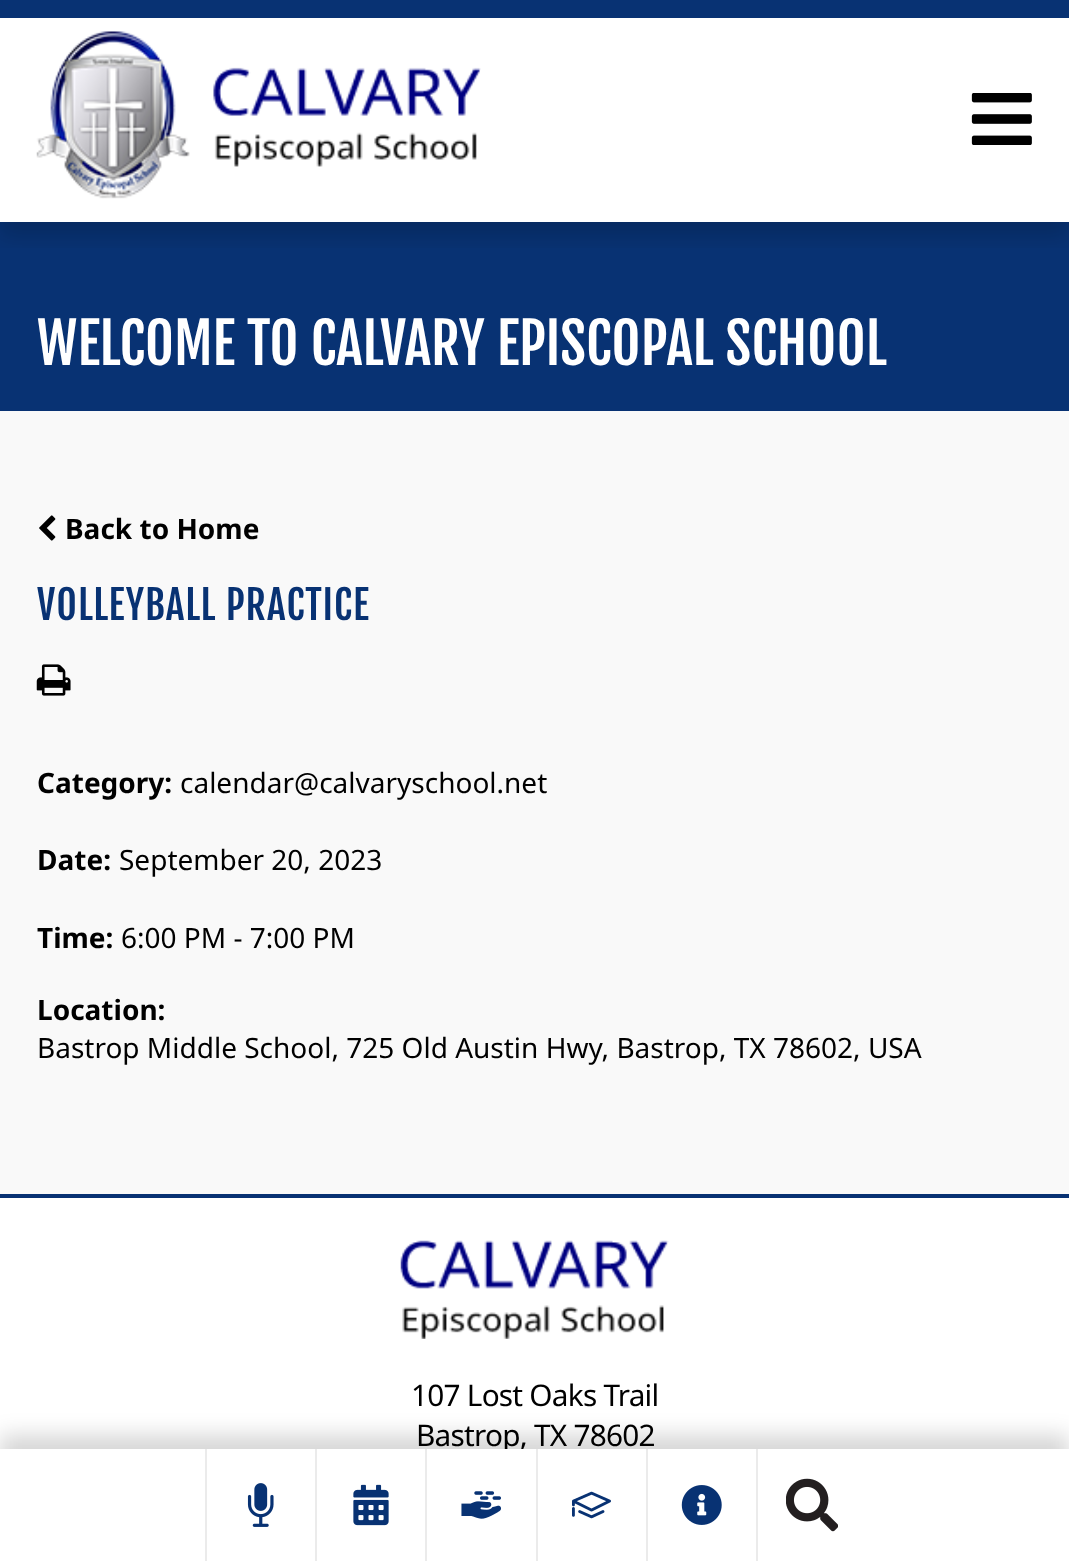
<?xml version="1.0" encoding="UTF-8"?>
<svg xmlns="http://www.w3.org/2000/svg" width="1069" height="1561">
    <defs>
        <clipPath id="clip1"><rect x="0" y="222" width="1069" height="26"/></clipPath>
        <filter id="blur1" x="-50%" y="-200%" width="200%" height="500%"><feGaussianBlur stdDeviation="10.5"/></filter>
    </defs>
    <rect width="100%" height="100%" fill="#FFFFFF"/>
    <rect x="0" y="222" width="1069" height="189" fill="#083273"/>
    <g clip-path="url(#clip1)">
        <rect x="0" y="14" width="1069" height="222" fill="#000000" fill-opacity="0.16" filter="url(#blur1)"/>
    </g>
    <rect x="0" y="0" width="1069" height="18" fill="#083273"/>
    <image x="36" y="31" width="445" height="168" href="img_01.png"/>
    <image x="971" y="93" width="61" height="52" href="img_02.png"/>
    <rect x="0" y="1435" width="1069" height="112" fill="#000000" fill-opacity="0.16" filter="url(#blur1)"/>
    <text x="416" y="1446" font-family="Noto Sans" font-size="29.75" letter-spacing="-0.75" fill="#000000">Bastrop, TX 78602</text>
    <rect x="0" y="1449" width="1069" height="112" fill="#FFFFFF"/>
    <rect x="315" y="1449" width="2" height="112" fill="#EBEBEB"/>
    <rect x="205" y="1449" width="2" height="112" fill="#EBEBEB"/>
    <image x="247" y="1483" width="27" height="44" href="img_03.png"/>
    <rect x="425" y="1449" width="2" height="112" fill="#EBEBEB"/>
    <image x="353" y="1484" width="36" height="42" href="img_04.png"/>
    <rect x="536" y="1449" width="2" height="112" fill="#EBEBEB"/>
    <image x="461" y="1491" width="40" height="28" href="img_05.png"/>
    <rect x="646" y="1449" width="2" height="112" fill="#EBEBEB"/>
    <image x="572" y="1491" width="39" height="28" href="img_06.png"/>
    <rect x="756" y="1449" width="2" height="112" fill="#EBEBEB"/>
    <image x="681" y="1485" width="41" height="40" href="img_07.png"/>
    <image x="786" y="1478" width="52" height="54" href="img_08.png"/>
    <text x="37" y="365" font-family="Fjalla One" font-size="56" fill="#FFFFFF">WELCOME TO CALVARY EPISCOPAL SCHOOL</text>
    <rect x="0" y="411" width="1069" height="783" fill="#F9F9F9"/>
    <image x="39" y="515" width="17" height="26" href="img_09.png"/>
    <text x="65" y="539" font-family="Noto Sans" font-size="28" font-weight="700" fill="#000000">Back to Home</text>
    <text x="37" y="620" font-family="Fjalla One" font-size="39.5" letter-spacing="1" fill="#083273">VOLLEYBALL PRACTICE</text>
    <image x="36" y="664" width="35" height="32" href="img_10.png"/>
    <text x="37" y="793" font-family="Noto Sans" font-size="28" font-weight="700" fill="#000000">Category:</text>
    <text x="180" y="793" font-family="Noto Sans" font-size="28" fill="#000000">calendar@calvaryschool.net</text>
    <text x="37" y="870" font-family="Noto Sans" font-size="28" font-weight="700" fill="#000000">Date:</text>
    <text x="119" y="870" font-family="Noto Sans" font-size="28" fill="#000000">September 20, 2023</text>
    <text x="37" y="948" font-family="Noto Sans" font-size="28" font-weight="700" fill="#000000">Time:</text>
    <text x="121" y="948" font-family="Noto Sans" font-size="28" fill="#000000">6:00 PM - 7:00 PM</text>
    <text x="37" y="1020" font-family="Noto Sans" font-size="28" font-weight="700" fill="#000000">Location:</text>
    <text x="37" y="1058" font-family="Noto Sans" font-size="28" fill="#000000">Bastrop Middle School, 725 Old Austin Hwy, Bastrop, TX 78602, USA</text>
    <rect x="0" y="1194" width="1069" height="4" fill="#083273"/>
    <image x="400" y="1240" width="269" height="99" href="img_11.png"/>
    <text x="411" y="1406" font-family="Noto Sans" font-size="29.75" letter-spacing="-0.75" fill="#000000">107 Lost Oaks Trail</text>
</svg>
